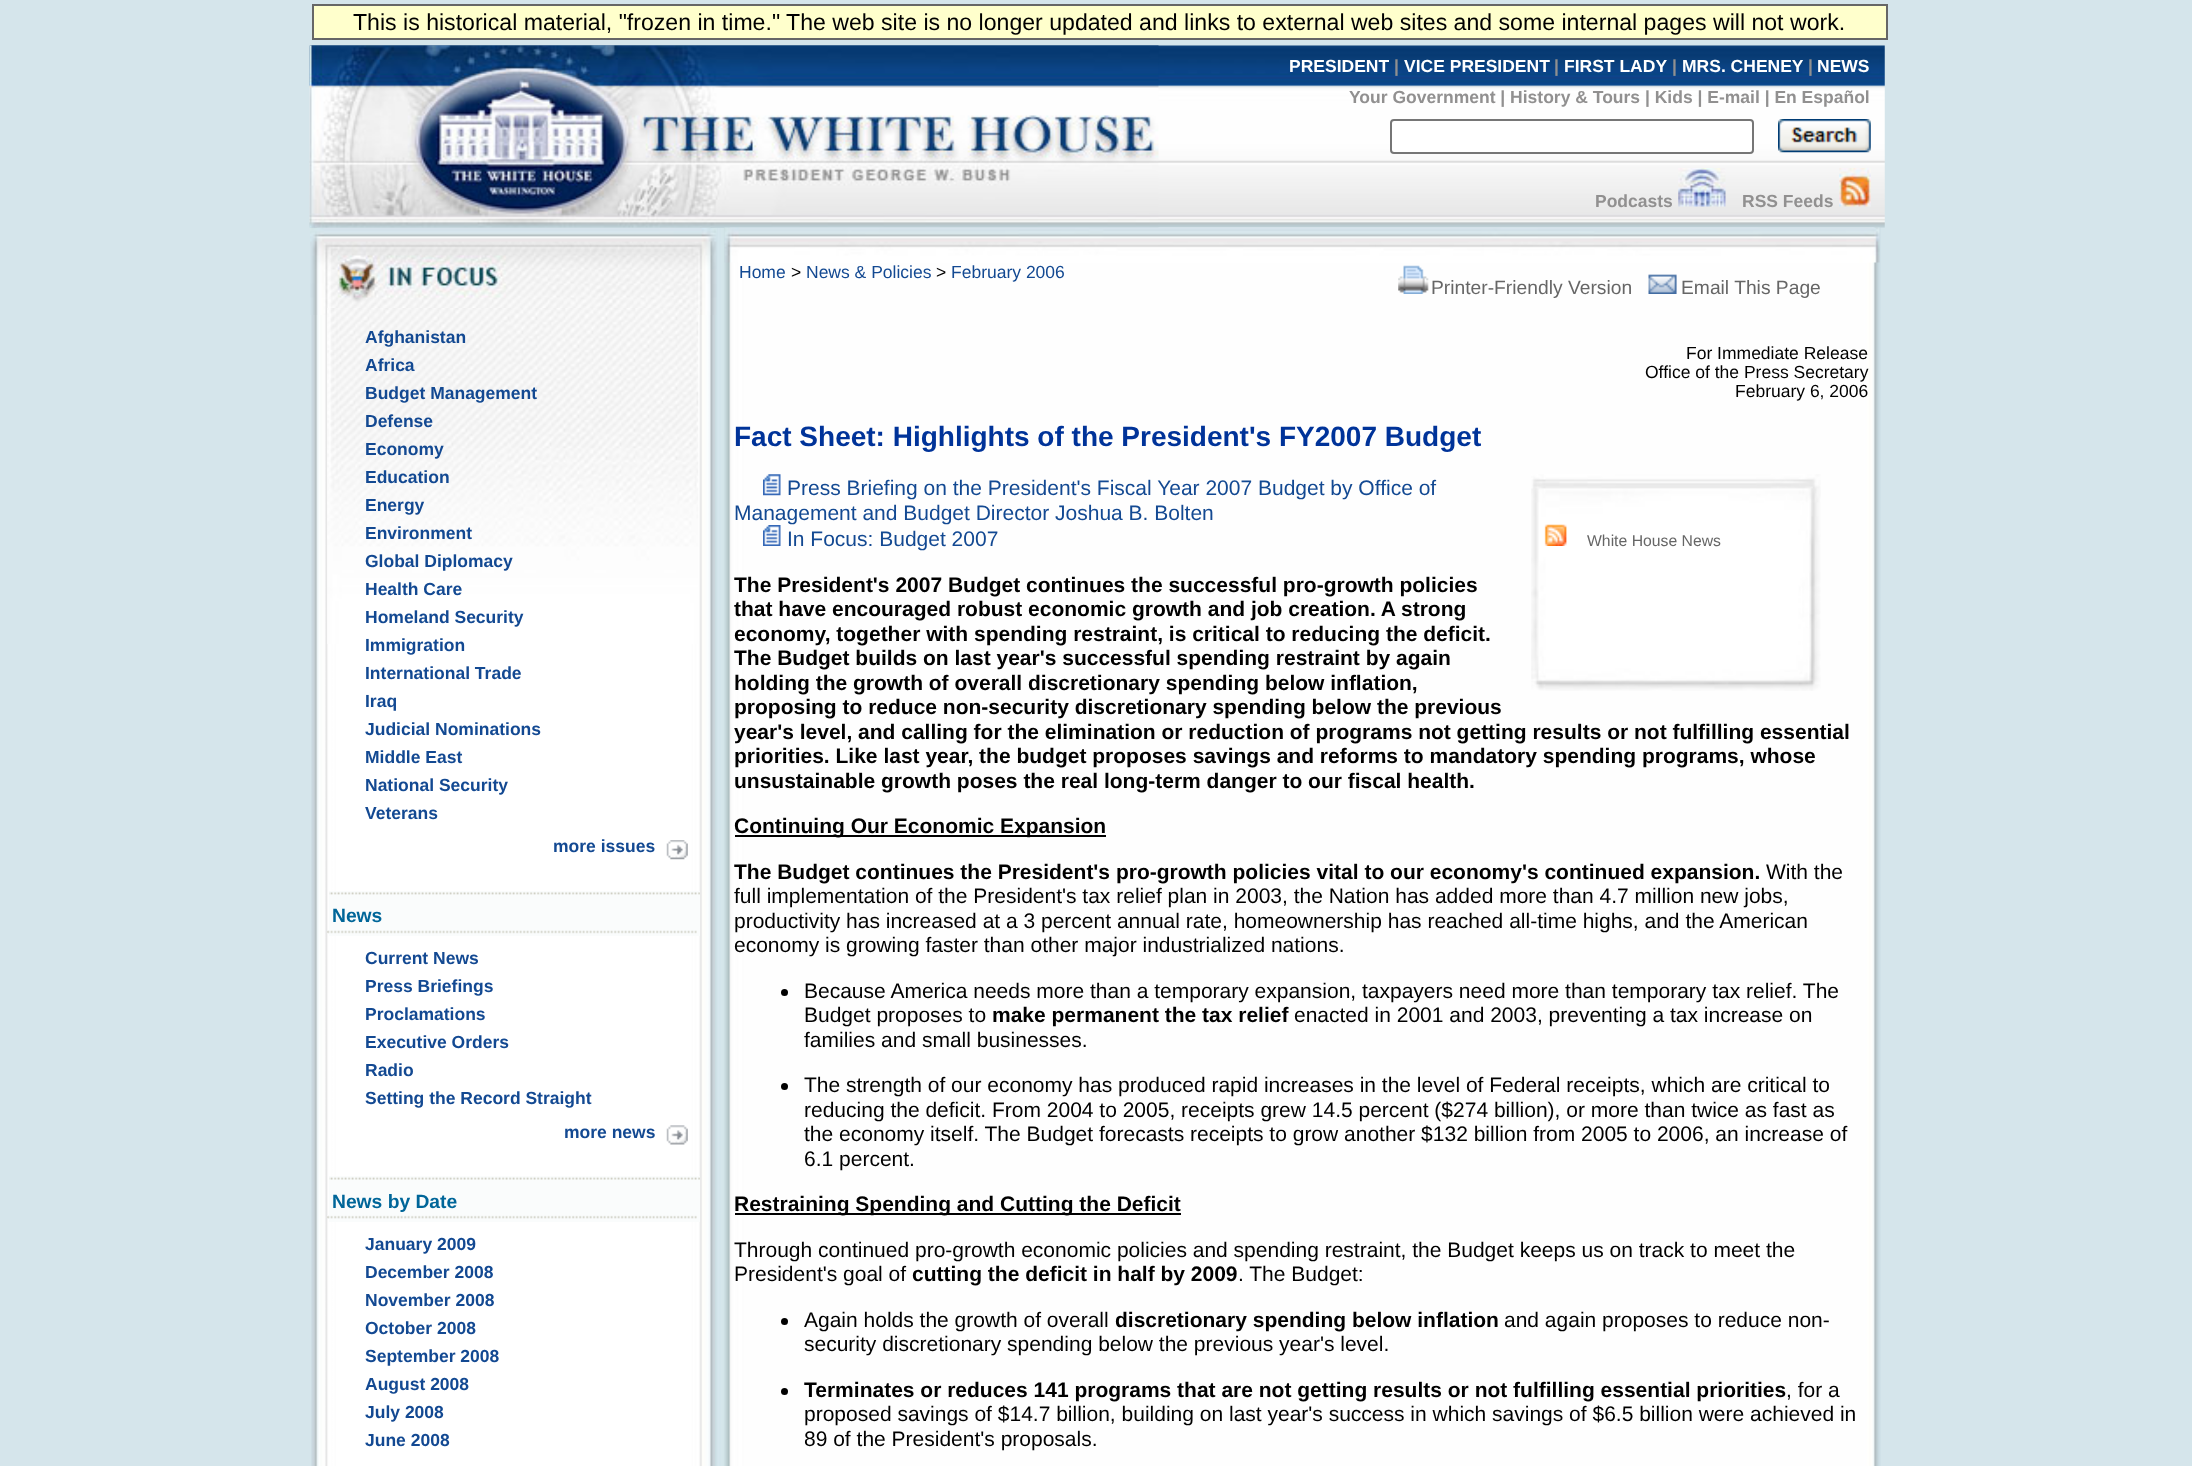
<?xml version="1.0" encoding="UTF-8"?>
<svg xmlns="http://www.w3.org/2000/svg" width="2192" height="1466">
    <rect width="100%" height="100%" fill="#D5E5EB"/>
    <rect x="313" y="5" width="1574" height="34" fill="#FFFFCC" stroke="#666666" stroke-width="2"/>
    <text x="353" y="30" font-family="Liberation Sans" font-size="23.1" fill="#000000">This is historical material, "frozen in time." The web site is no longer updated and links to external web sites and some internal pages will not work.</text>
    <image x="311" y="227" width="1570" height="1239" href="img_06.png"/>
    <image x="312" y="227" width="403" height="1239" href="img_08.png"/>
    <image x="310" y="227" width="407" height="88" href="img_09.png"/>
    <image x="309" y="45" width="1576" height="183" href="img_01.png"/>
    <image x="309" y="45" width="850" height="183" href="img_02.png"/>
    <text x="1289" y="72" font-family="Liberation Sans" font-size="17.5" font-weight="700" fill="#FFFFFF">PRESIDENT</text>
    <text x="1394" y="72" font-family="Liberation Sans" font-size="17.5" font-weight="700" fill="#919090">|</text>
    <text x="1404" y="72" font-family="Liberation Sans" font-size="17.5" font-weight="700" fill="#FFFFFF">VICE PRESIDENT</text>
    <text x="1554" y="72" font-family="Liberation Sans" font-size="17.5" font-weight="700" fill="#919090">|</text>
    <text x="1564" y="72" font-family="Liberation Sans" font-size="17.5" font-weight="700" fill="#FFFFFF">FIRST LADY</text>
    <text x="1672" y="72" font-family="Liberation Sans" font-size="17.5" font-weight="700" fill="#919090">|</text>
    <text x="1682" y="72" font-family="Liberation Sans" font-size="17.5" font-weight="700" fill="#FFFFFF">MRS. CHENEY</text>
    <text x="1808" y="72" font-family="Liberation Sans" font-size="17.5" font-weight="700" fill="#919090">|</text>
    <text x="1817" y="72" font-family="Liberation Sans" font-size="17.5" font-weight="700" fill="#FFFFFF">NEWS</text>
    <text x="1349" y="103" font-family="Liberation Sans" font-size="17.5" font-weight="700" fill="#919090">Your Government | History &amp; Tours | Kids | E-mail | En Español</text>
    <rect x="1391" y="120" width="362" height="33" rx="3" fill="#FFFFFF" stroke="#767676" stroke-width="2"/>
    <image x="1778" y="119" width="93" height="34" href="img_03.png"/>
    <text x="1595" y="207" font-family="Liberation Sans" font-size="17.5" font-weight="700" fill="#919090">Podcasts</text>
    <image x="1678" y="168" width="48" height="39" href="img_04.png"/>
    <text x="1742" y="207" font-family="Liberation Sans" font-size="17.5" font-weight="700" fill="#919090">RSS Feeds</text>
    <image x="1839" y="168" width="32" height="39" href="img_05.png"/>
    <image x="724" y="227" width="1156" height="36" href="img_07.png"/>
    <image x="327" y="308" width="372" height="336" href="img_10.png"/>
    <text font-family="Liberation Sans" font-size="17.5" font-weight="700" fill="#134992">
        <tspan x="365" y="343">Afghanistan</tspan>
        <tspan x="365" y="371">Africa</tspan>
        <tspan x="365" y="399">Budget Management</tspan>
        <tspan x="365" y="427">Defense</tspan>
        <tspan x="365" y="455">Economy</tspan>
        <tspan x="365" y="483">Education</tspan>
        <tspan x="365" y="511">Energy</tspan>
        <tspan x="365" y="539">Environment</tspan>
        <tspan x="365" y="567">Global Diplomacy</tspan>
        <tspan x="365" y="595">Health Care</tspan>
        <tspan x="365" y="623">Homeland Security</tspan>
        <tspan x="365" y="651">Immigration</tspan>
        <tspan x="365" y="679">International Trade</tspan>
        <tspan x="365" y="707">Iraq</tspan>
        <tspan x="365" y="735">Judicial Nominations</tspan>
        <tspan x="365" y="763">Middle East</tspan>
        <tspan x="365" y="791">National Security</tspan>
        <tspan x="365" y="819">Veterans</tspan>
    </text>
    <text x="553" y="852" font-family="Liberation Sans" font-size="17.5" font-weight="700" fill="#134992">more issues</text>
    <image x="666" y="840" width="22" height="20" href="img_11.png"/>
    <rect x="329" y="891" width="371" height="45" fill="#FAFCFC"/>
    <image x="329" y="892" width="371" height="3" href="img_12.png"/>
    <text x="332" y="922" font-family="Liberation Sans" font-size="19.25" font-weight="700" fill="#006699">News</text>
    <image x="327" y="930" width="370" height="4" href="img_13.png"/>
    <text font-family="Liberation Sans" font-size="17.5" font-weight="700" fill="#134992">
        <tspan x="365" y="964">Current News</tspan>
        <tspan x="365" y="992">Press Briefings</tspan>
        <tspan x="365" y="1020">Proclamations</tspan>
        <tspan x="365" y="1048">Executive Orders</tspan>
        <tspan x="365" y="1076">Radio</tspan>
        <tspan x="365" y="1104">Setting the Record Straight</tspan>
    </text>
    <text x="564" y="1138" font-family="Liberation Sans" font-size="17.5" font-weight="700" fill="#134992">more news</text>
    <image x="666" y="1125" width="22" height="20" href="img_14.png"/>
    <rect x="329" y="1176" width="371" height="46" fill="#FAFCFC"/>
    <image x="329" y="1177" width="371" height="3" href="img_15.png"/>
    <text x="332" y="1208" font-family="Liberation Sans" font-size="19.25" font-weight="700" fill="#006699">News by Date</text>
    <image x="327" y="1215" width="370" height="4" href="img_16.png"/>
    <text font-family="Liberation Sans" font-size="17.5" font-weight="700" fill="#134992">
        <tspan x="365" y="1250">January 2009</tspan>
        <tspan x="365" y="1278">December 2008</tspan>
        <tspan x="365" y="1306">November 2008</tspan>
        <tspan x="365" y="1334">October 2008</tspan>
        <tspan x="365" y="1362">September 2008</tspan>
        <tspan x="365" y="1390">August 2008</tspan>
        <tspan x="365" y="1418">July 2008</tspan>
        <tspan x="365" y="1446">June 2008</tspan>
    </text>
    <text x="739" y="278" font-family="Liberation Sans" font-size="17.5" fill="#134992">Home</text>
    <text x="791" y="278" font-family="Liberation Sans" font-size="17.5" fill="#000000">&gt;</text>
    <text x="806" y="278" font-family="Liberation Sans" font-size="17.5" fill="#134992">News &amp; Policies</text>
    <text x="936" y="278" font-family="Liberation Sans" font-size="17.5" fill="#000000">&gt;</text>
    <text x="951" y="278" font-family="Liberation Sans" font-size="17.5" fill="#134992">February 2006</text>
    <image x="1398" y="265" width="31" height="29" href="img_17.png"/>
    <text x="1431" y="294" font-family="Liberation Sans" font-size="19.25" fill="#666666">Printer-Friendly Version</text>
    <image x="1648" y="274" width="29" height="20" href="img_18.png"/>
    <text x="1681" y="294" font-family="Liberation Sans" font-size="19.25" fill="#666666">Email This Page</text>
    <text x="1686" y="359" font-family="Liberation Sans" font-size="17.5" fill="#000000">For Immediate Release</text>
    <text x="1645" y="378" font-family="Liberation Sans" font-size="17.5" fill="#000000">Office of the Press Secretary</text>
    <text x="1735" y="397" font-family="Liberation Sans" font-size="17.5" fill="#000000">February 6, 2006</text>
    <text x="734" y="446" font-family="Liberation Sans" font-size="28" font-weight="700" fill="#003399">Fact Sheet: Highlights of the President's FY2007 Budget</text>
    <image x="763" y="474" width="18" height="22" href="img_19.png"/>
    <text x="787" y="495" font-family="Liberation Sans" font-size="21" fill="#134992">Press Briefing on the President's Fiscal Year 2007 Budget by Office of</text>
    <text x="734" y="520" font-family="Liberation Sans" font-size="21" fill="#134992">Management and Budget Director Joshua B. Bolten</text>
    <image x="763" y="525" width="18" height="21" href="img_20.png"/>
    <text x="787" y="546" font-family="Liberation Sans" font-size="21" fill="#134992">In Focus: Budget 2007</text>
    <image x="1531" y="474" width="290" height="217" href="img_21.png"/>
    <image x="1544" y="524" width="23" height="22" href="img_22.png"/>
    <text x="1587" y="546" font-family="Liberation Sans" font-size="15.75" fill="#666666">White House News</text>
    <text font-family="Liberation Sans" font-size="21" font-weight="700" fill="#000000">
        <tspan x="734" y="592">The President's 2007 Budget continues the successful pro-growth policies</tspan>
        <tspan x="734" y="616">that have encouraged robust economic growth and job creation. A strong</tspan>
        <tspan x="734" y="641">economy, together with spending restraint, is critical to reducing the deficit.</tspan>
        <tspan x="734" y="665">The Budget builds on last year's successful spending restraint by again</tspan>
        <tspan x="734" y="690">holding the growth of overall discretionary spending below inflation,</tspan>
        <tspan x="734" y="714">proposing to reduce non-security discretionary spending below the previous</tspan>
        <tspan x="734" y="739">year's level, and calling for the elimination or reduction of programs not getting results or not fulfilling essential</tspan>
        <tspan x="734" y="763">priorities. Like last year, the budget proposes savings and reforms to mandatory spending programs, whose</tspan>
        <tspan x="734" y="788">unsustainable growth poses the real long-term danger to our fiscal health.</tspan>
    </text>
    <rect x="735" y="835" width="371" height="2" fill="#000000"/>
    <text x="734" y="833" font-family="Liberation Sans" font-size="21" font-weight="700" fill="#000000">Continuing Our Economic Expansion</text>
    <text x="734" y="879" font-family="Liberation Sans" font-size="21" font-weight="700" fill="#000000">The Budget continues the President's pro-growth policies vital to our economy's continued expansion.</text>
    <text x="1766" y="879" font-family="Liberation Sans" font-size="21" fill="#000000">With the</text>
    <text font-family="Liberation Sans" font-size="21" fill="#000000">
        <tspan x="734" y="903">full implementation of the President's tax relief plan in 2003, the Nation has added more than 4.7 million new jobs,</tspan>
        <tspan x="734" y="928">productivity has increased at a 3 percent annual rate, homeownership has reached all-time highs, and the American</tspan>
        <tspan x="734" y="952">economy is growing faster than other major industrialized nations.</tspan>
    </text>
    <circle cx="784.5" cy="992.5" r="3.5" fill="#000000"/>
    <text font-family="Liberation Sans" font-size="21" fill="#000000">
        <tspan x="804" y="998">Because America needs more than a temporary expansion, taxpayers need more than temporary tax relief. The</tspan>
        <tspan x="804" y="1022">Budget proposes to</tspan>
    </text>
    <text x="992" y="1022" font-family="Liberation Sans" font-size="21" font-weight="700" fill="#000000">make permanent the tax relief</text>
    <text x="1294" y="1022" font-family="Liberation Sans" font-size="21" fill="#000000">enacted in 2001 and 2003, preventing a tax increase on</text>
    <text x="804" y="1047" font-family="Liberation Sans" font-size="21" fill="#000000">families and small businesses.</text>
    <circle cx="784.5" cy="1086.5" r="3.5" fill="#000000"/>
    <text font-family="Liberation Sans" font-size="21" fill="#000000">
        <tspan x="804" y="1092">The strength of our economy has produced rapid increases in the level of Federal receipts, which are critical to</tspan>
        <tspan x="804" y="1117">reducing the deficit. From 2004 to 2005, receipts grew 14.5 percent ($274 billion), or more than twice as fast as</tspan>
        <tspan x="804" y="1141">the economy itself. The Budget forecasts receipts to grow another $132 billion from 2005 to 2006, an increase of</tspan>
        <tspan x="804" y="1166">6.1 percent.</tspan>
    </text>
    <rect x="735" y="1213" width="446" height="2" fill="#000000"/>
    <text x="734" y="1211" font-family="Liberation Sans" font-size="21" font-weight="700" fill="#000000">Restraining Spending and Cutting the Deficit</text>
    <text font-family="Liberation Sans" font-size="21" fill="#000000">
        <tspan x="734" y="1257">Through continued pro-growth economic policies and spending restraint, the Budget keeps us on track to meet the</tspan>
        <tspan x="734" y="1281">President's goal of</tspan>
    </text>
    <text x="912" y="1281" font-family="Liberation Sans" font-size="21" font-weight="700" fill="#000000">cutting the deficit in half by 2009</text>
    <text x="1238" y="1281" font-family="Liberation Sans" font-size="21" fill="#000000">. The Budget:</text>
    <circle cx="784.5" cy="1321.5" r="3.5" fill="#000000"/>
    <text x="804" y="1327" font-family="Liberation Sans" font-size="21" fill="#000000">Again holds the growth of overall</text>
    <text x="1115" y="1327" font-family="Liberation Sans" font-size="21" font-weight="700" fill="#000000">discretionary spending below inflation</text>
    <text x="1504" y="1327" font-family="Liberation Sans" font-size="21" fill="#000000">and again proposes to reduce non-</text>
    <text x="804" y="1351" font-family="Liberation Sans" font-size="21" fill="#000000">security discretionary spending below the previous year's level.</text>
    <circle cx="784.5" cy="1391.5" r="3.5" fill="#000000"/>
    <text x="804" y="1397" font-family="Liberation Sans" font-size="21" font-weight="700" fill="#000000">Terminates or reduces 141 programs that are not getting results or not fulfilling essential priorities</text>
    <text x="1786" y="1397" font-family="Liberation Sans" font-size="21" fill="#000000">, for a</text>
    <text font-family="Liberation Sans" font-size="21" fill="#000000">
        <tspan x="804" y="1421">proposed savings of $14.7 billion, building on last year's success in which savings of $6.5 billion were achieved in</tspan>
        <tspan x="804" y="1446">89 of the President's proposals.</tspan>
    </text>
</svg>
